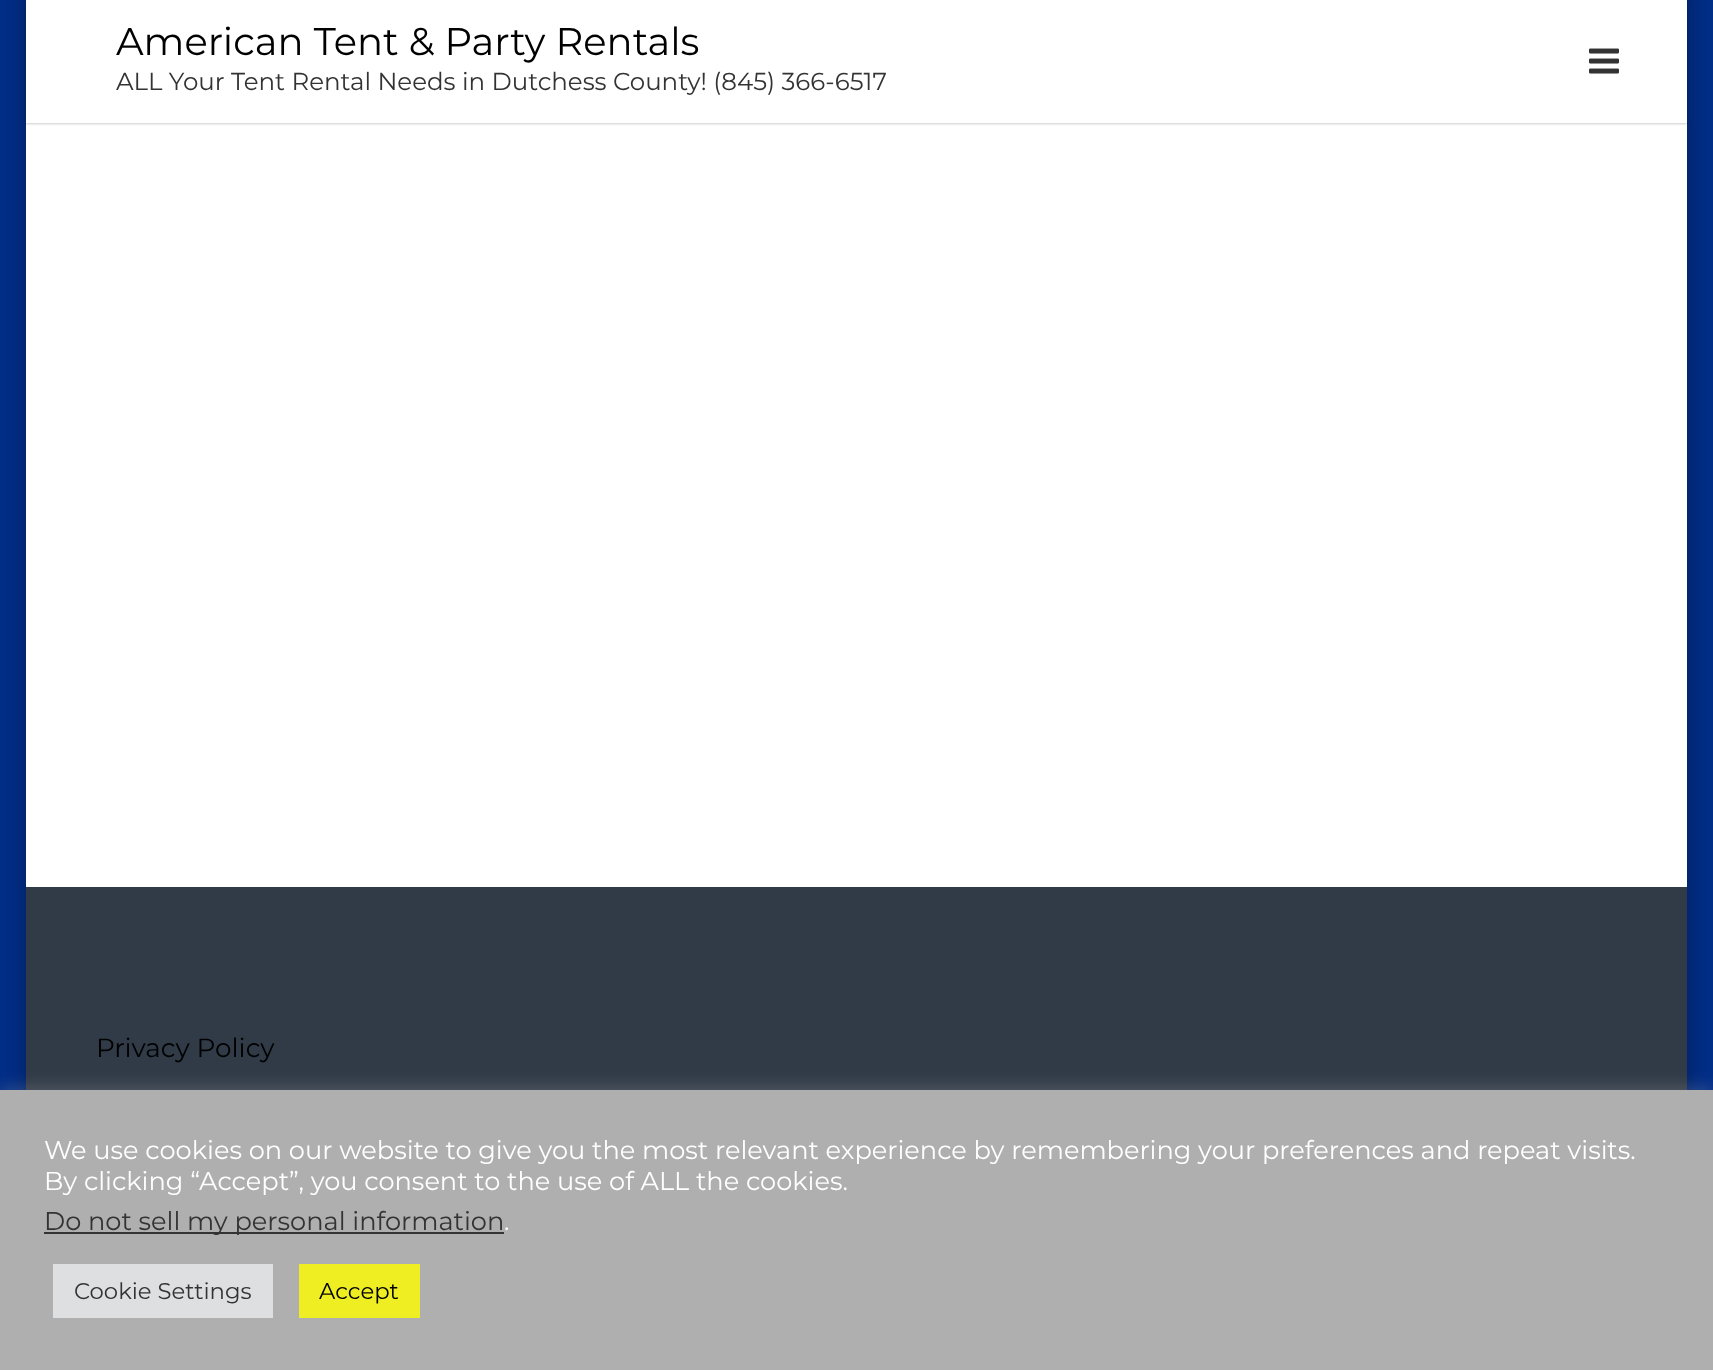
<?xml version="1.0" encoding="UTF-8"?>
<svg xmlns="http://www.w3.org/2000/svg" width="1713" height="1370">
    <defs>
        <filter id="blur1" x="-50%" y="-200%" width="200%" height="500%"><feGaussianBlur stdDeviation="10.5"/></filter>
        <filter id="blur2" x="-50%" y="-200%" width="200%" height="500%"><feGaussianBlur stdDeviation="1"/></filter>
        <filter id="blur3" x="-50%" y="-200%" width="200%" height="500%"><feGaussianBlur stdDeviation="9"/></filter>
    </defs>
    <rect width="100%" height="100%" fill="#012D87"/>
    <rect x="25" y="-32" width="1664" height="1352" fill="#000000" fill-opacity="0.3" filter="url(#blur1)"/>
    <rect x="26" y="123" width="1661" height="764" fill="#FFFFFF"/>
    <rect x="26" y="2" width="1661" height="122" fill="#000000" fill-opacity="0.2" filter="url(#blur2)"/>
    <rect x="26" y="0" width="1661" height="123" fill="#FFFFFF"/>
    <text x="116" y="55" font-family="Montserrat" font-size="38.5" fill="#000000">American Tent &amp; Party Rentals</text>
    <text x="116" y="90" font-family="Montserrat" font-size="24.5" fill="#333333">ALL Your Tent Rental Needs in Dutchess County! (845) 366-6517</text>
    <image x="1589" y="48" width="30" height="26" href="img_01.png"/>
    <rect x="26" y="887" width="1661" height="203" fill="#313B48"/>
    <text x="96" y="1057" font-family="Montserrat" font-size="26.25" fill="#000000">Privacy Policy</text>
    <rect x="0" y="1089" width="1713" height="280" fill="#ACABAB" fill-opacity="0.3" filter="url(#blur3)"/>
    <rect x="0" y="1090" width="1713" height="280" fill="#AFAFAF"/>
    <text font-family="Montserrat" font-size="25.67" fill="#FFFFFF">
        <tspan x="44" y="1159">We use cookies on our website to give you the most relevant experience by remembering your preferences and repeat visits.</tspan>
        <tspan x="44" y="1190">By clicking “Accept”, you consent to the use of ALL the cookies.</tspan>
    </text>
    <rect x="44" y="1232" width="460" height="2" fill="#333333"/>
    <text x="44" y="1230" font-family="Montserrat" font-size="25.67" fill="#333333">Do not sell my personal information</text>
    <text x="504" y="1230" font-family="Montserrat" font-size="25.67" fill="#FFFFFF">.</text>
    <rect x="53" y="1264" width="220" height="54" fill="#DEDFE0"/>
    <text x="74" y="1299" font-family="Montserrat" font-size="22.75" fill="#333333">Cookie Settings</text>
    <rect x="299" y="1264" width="121" height="54" fill="#EEEE22"/>
    <text x="319" y="1299" font-family="Montserrat" font-size="22.75" fill="#000000">Accept</text>
</svg>
